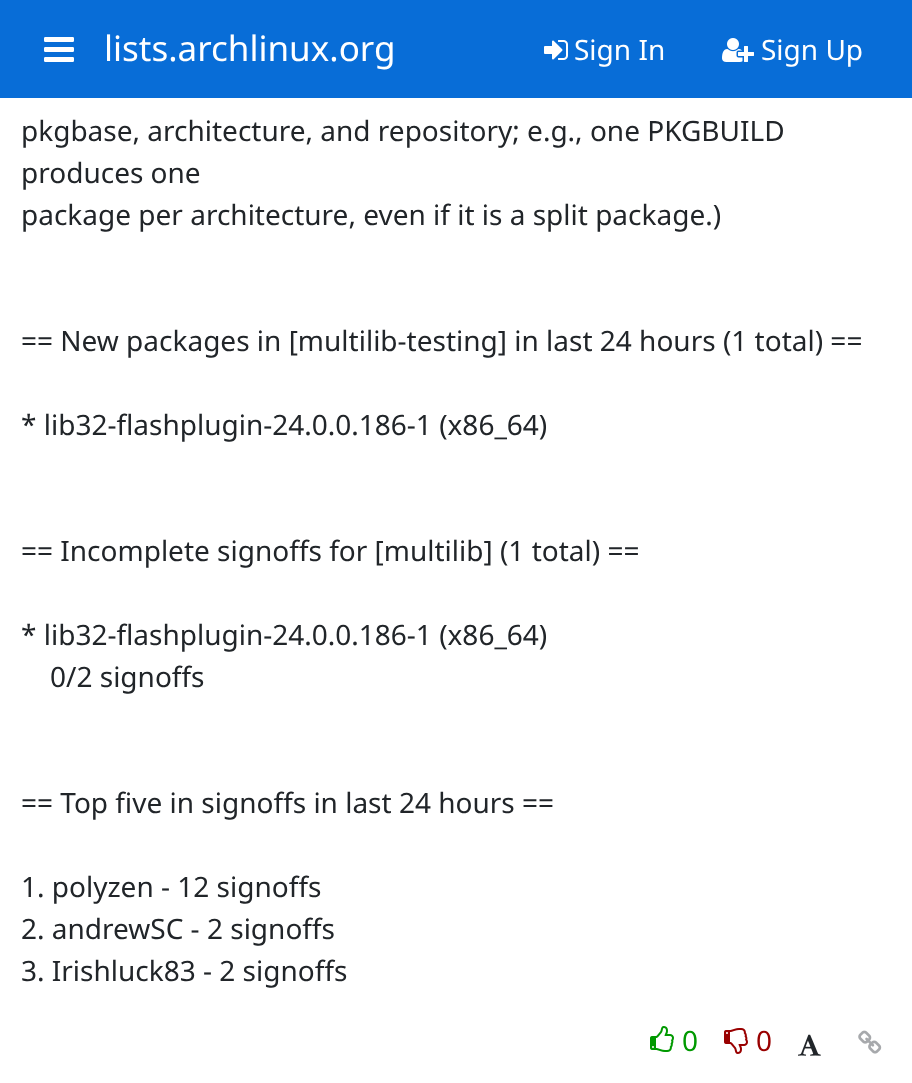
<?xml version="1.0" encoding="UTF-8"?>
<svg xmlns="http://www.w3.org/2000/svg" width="912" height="1083">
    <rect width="100%" height="100%" fill="#FFFFFF"/>
    <rect x="0" y="0" width="912" height="98" fill="#086DD7"/>
    <image x="44" y="37" width="30" height="25" href="img_01.png"/>
    <text x="104" y="61" font-family="Noto Sans" font-size="35" fill="#FFFFFF">lists.archlinux.org</text>
    <image x="544" y="40" width="24" height="20" href="img_02.png"/>
    <text x="574" y="60" font-family="Noto Sans" font-size="28" fill="#FFFFFF">Sign In</text>
    <image x="722" y="38" width="32" height="24" href="img_03.png"/>
    <text x="761" y="60" font-family="Noto Sans" font-size="28" fill="#FFFFFF">Sign Up</text>
    <text font-family="Noto Sans" font-size="28" fill="#212529">
        <tspan x="21" y="141">pkgbase, architecture, and repository; e.g., one PKGBUILD</tspan>
        <tspan x="21" y="183">produces one</tspan>
        <tspan x="21" y="225">package per architecture, even if it is a split package.)</tspan>
    </text>
    <text x="21" y="351" font-family="Noto Sans" font-size="28" fill="#212529">== New packages in [multilib-testing] in last 24 hours (1 total) ==</text>
    <text x="21" y="435" font-family="Noto Sans" font-size="28" fill="#212529">* lib32-flashplugin-24.0.0.186-1 (x86_64)</text>
    <text x="21" y="561" font-family="Noto Sans" font-size="28" fill="#212529">== Incomplete signoffs for [multilib] (1 total) ==</text>
    <text x="21" y="645" font-family="Noto Sans" font-size="28" fill="#212529">* lib32-flashplugin-24.0.0.186-1 (x86_64)</text>
    <text x="50" y="687" font-family="Noto Sans" font-size="28" fill="#212529">0/2 signoffs</text>
    <text x="21" y="813" font-family="Noto Sans" font-size="28" fill="#212529">== Top five in signoffs in last 24 hours ==</text>
    <text font-family="Noto Sans" font-size="28" fill="#212529">
        <tspan x="21" y="897">1. polyzen - 12 signoffs</tspan>
        <tspan x="21" y="939">2. andrewSC - 2 signoffs</tspan>
        <tspan x="21" y="981">3. Irishluck83 - 2 signoffs</tspan>
    </text>
    <image x="650" y="1026" width="24" height="26" href="img_04.png"/>
    <text x="682" y="1051" font-family="Noto Sans" font-size="28" fill="#009900">0</text>
    <image x="724" y="1028" width="24" height="26" href="img_05.png"/>
    <text x="756" y="1051" font-family="Noto Sans" font-size="28" fill="#990000">0</text>
    <image x="798" y="1034" width="23" height="22" href="img_06.png"/>
    <image x="858" y="1030" width="24" height="24" href="img_07.png"/>
</svg>
